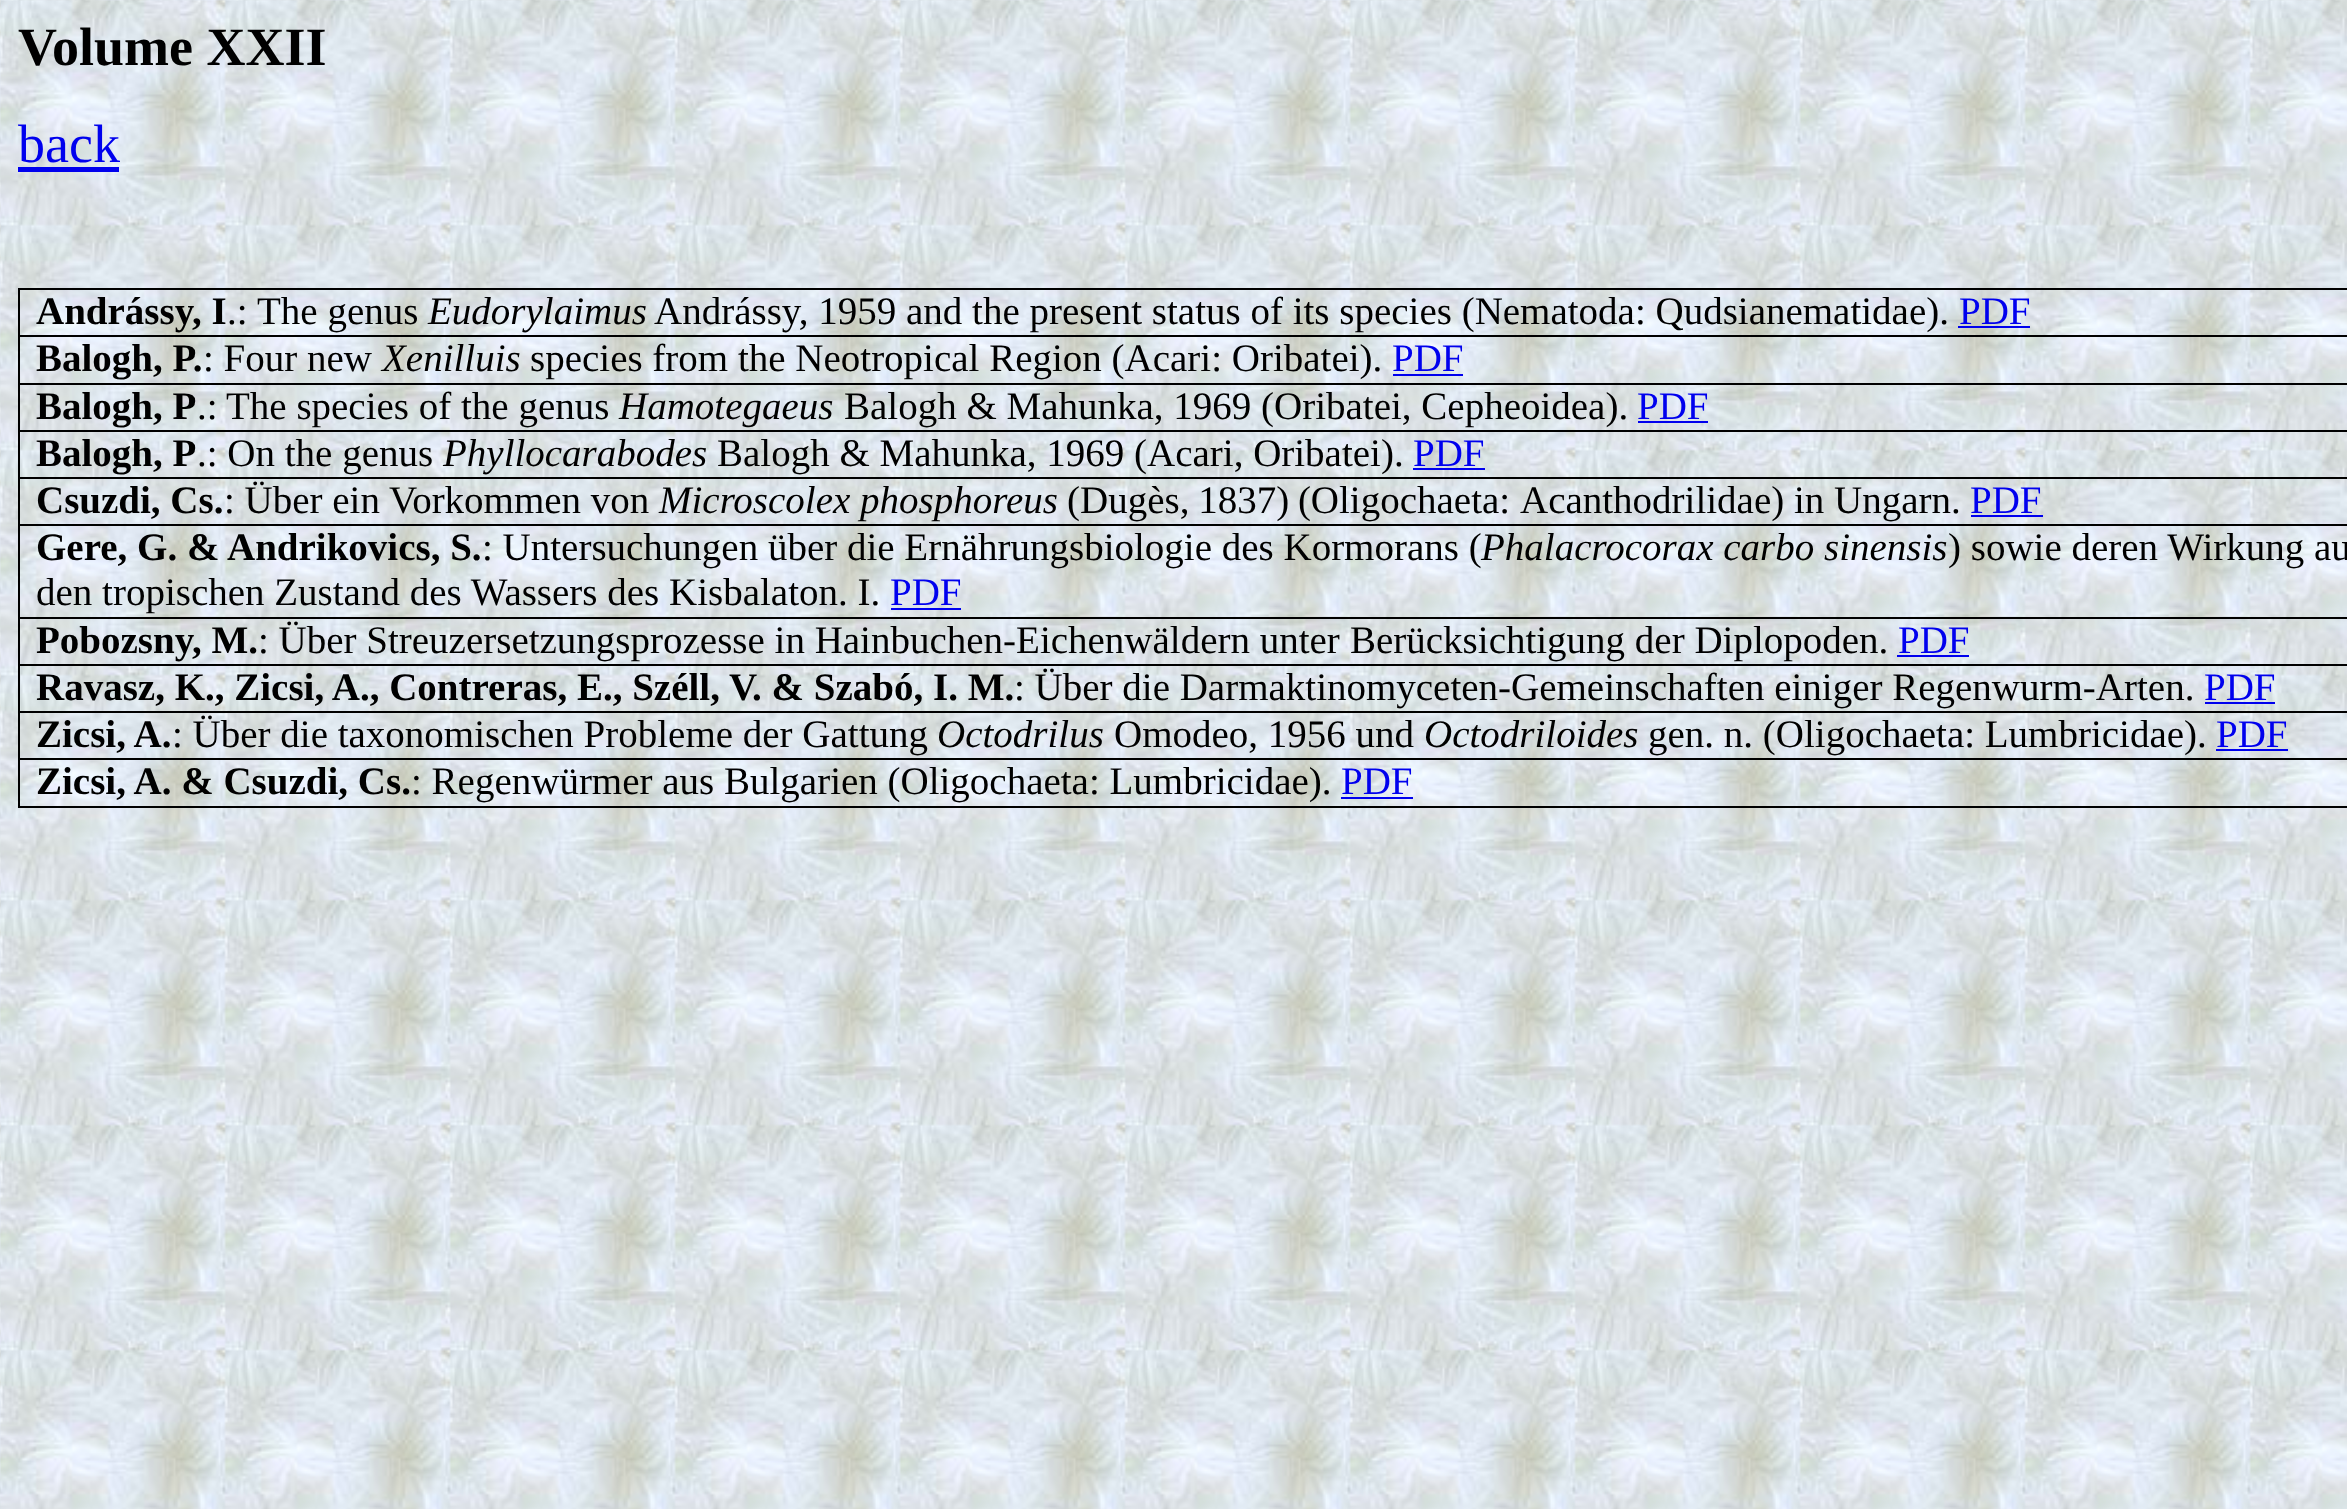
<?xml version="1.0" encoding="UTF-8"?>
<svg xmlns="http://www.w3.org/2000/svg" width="2347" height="1509">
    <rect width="100%" height="100%" fill="#FFFFFF"/>
    <image x="0" y="0" width="2347" height="1509" href="img_01.png"/>
    <text x="18" y="65" font-family="Liberation Serif" font-size="54" font-weight="700" fill="#000000">Volume XXII</text>
    <text x="18" y="162" font-family="Liberation Serif" font-size="54" fill="#0000EE">back</text>
    <rect x="18" y="167" width="101" height="5" fill="#0000EE"/>
    <rect x="18" y="288" width="2329" height="2" fill="#000000"/>
    <rect x="18" y="806" width="2329" height="2" fill="#000000"/>
    <rect x="18" y="758" width="2" height="50" fill="#000000"/>
    <rect x="18" y="758" width="2329" height="2" fill="#000000"/>
    <rect x="18" y="711" width="2" height="50" fill="#000000"/>
    <rect x="18" y="711" width="2329" height="2" fill="#000000"/>
    <rect x="18" y="664" width="2" height="49" fill="#000000"/>
    <rect x="18" y="664" width="2329" height="2" fill="#000000"/>
    <rect x="18" y="617" width="2" height="49" fill="#000000"/>
    <rect x="18" y="617" width="2329" height="2" fill="#000000"/>
    <rect x="18" y="524" width="2" height="95" fill="#000000"/>
    <rect x="18" y="524" width="2329" height="2" fill="#000000"/>
    <rect x="18" y="477" width="2" height="50" fill="#000000"/>
    <rect x="18" y="477" width="2329" height="2" fill="#000000"/>
    <rect x="18" y="430" width="2" height="49" fill="#000000"/>
    <rect x="18" y="430" width="2329" height="2" fill="#000000"/>
    <rect x="18" y="383" width="2" height="49" fill="#000000"/>
    <rect x="18" y="383" width="2329" height="2" fill="#000000"/>
    <rect x="18" y="335" width="2" height="50" fill="#000000"/>
    <rect x="18" y="335" width="2329" height="2" fill="#000000"/>
    <rect x="18" y="288" width="2" height="50" fill="#000000"/>
    <text x="36" y="324" font-family="Liberation Serif" font-size="39" font-weight="700" fill="#000000">Andrássy, I</text>
    <text x="227" y="324" font-family="Liberation Serif" font-size="39" fill="#000000">.:</text>
    <text x="257" y="324" font-family="Liberation Serif" font-size="39" fill="#000000">The genus</text>
    <text x="428" y="324" font-family="Liberation Serif" font-size="39" font-style="italic" fill="#000000">Eudorylaimus</text>
    <text x="654" y="324" font-family="Liberation Serif" font-size="39" fill="#000000">Andrássy, 1959 and the present status of its species (Nematoda: Qudsianematidae).</text>
    <text x="1959" y="324" font-family="Liberation Serif" font-size="39" fill="#0000EE">PDF</text>
    <rect x="1958" y="326" width="72" height="2" fill="#0000EE"/>
    <text x="36" y="371" font-family="Liberation Serif" font-size="39" font-weight="700" fill="#000000">Balogh, P.</text>
    <text x="203" y="371" font-family="Liberation Serif" font-size="39" fill="#000000">: Four new</text>
    <text x="382" y="371" font-family="Liberation Serif" font-size="39" font-style="italic" fill="#000000">Xenilluis</text>
    <text x="530" y="371" font-family="Liberation Serif" font-size="39" fill="#000000">species from the Neotropical Region (Acari: Oribatei).</text>
    <text x="1392" y="371" font-family="Liberation Serif" font-size="39" fill="#0000EE">PDF</text>
    <rect x="1393" y="374" width="70" height="2" fill="#0000EE"/>
    <text x="36" y="419" font-family="Liberation Serif" font-size="39" font-weight="700" fill="#000000">Balogh, P</text>
    <text x="197" y="419" font-family="Liberation Serif" font-size="39" fill="#000000">.:</text>
    <text x="226" y="419" font-family="Liberation Serif" font-size="39" fill="#000000">The species of the genus</text>
    <text x="619" y="419" font-family="Liberation Serif" font-size="39" font-style="italic" fill="#000000">Hamotegaeus</text>
    <text x="844" y="419" font-family="Liberation Serif" font-size="39" fill="#000000">Balogh &amp; Mahunka, 1969 (Oribatei, Cepheoidea).</text>
    <text x="1637" y="419" font-family="Liberation Serif" font-size="39" fill="#0000EE">PDF</text>
    <rect x="1638" y="421" width="70" height="2" fill="#0000EE"/>
    <text x="36" y="466" font-family="Liberation Serif" font-size="39" font-weight="700" fill="#000000">Balogh, P</text>
    <text x="197" y="466" font-family="Liberation Serif" font-size="39" fill="#000000">.: On the genus</text>
    <text x="443" y="466" font-family="Liberation Serif" font-size="39" font-style="italic" fill="#000000">Phyllocarabodes</text>
    <text x="717" y="466" font-family="Liberation Serif" font-size="39" fill="#000000">Balogh &amp; Mahunka, 1969 (Acari, Oribatei).</text>
    <text x="1413" y="466" font-family="Liberation Serif" font-size="39" fill="#0000EE">PDF</text>
    <rect x="1413" y="468" width="72" height="2" fill="#0000EE"/>
    <text x="36" y="513" font-family="Liberation Serif" font-size="39" font-weight="700" fill="#000000">Csuzdi, Cs.</text>
    <text x="224" y="513" font-family="Liberation Serif" font-size="39" fill="#000000">: Über ein Vorkommen von</text>
    <text x="659" y="513" font-family="Liberation Serif" font-size="39" font-style="italic" fill="#000000">Microscolex phosphoreus</text>
    <text x="1067" y="513" word-spacing="-1" font-family="Liberation Serif" font-size="39" fill="#000000">(Dugès, 1837) (Oligochaeta:</text>
    <text x="1520" y="513" font-family="Liberation Serif" font-size="39" fill="#000000">Acanthodrilidae) in Ungarn.</text>
    <text x="1970" y="513" font-family="Liberation Serif" font-size="39" fill="#0000EE">PDF</text>
    <rect x="1971" y="515" width="72" height="2" fill="#0000EE"/>
    <text x="36" y="560" font-family="Liberation Serif" font-size="39" font-weight="700" fill="#000000">Gere, G. &amp; Andrikovics, S.</text>
    <text x="482" y="560" font-family="Liberation Serif" font-size="39" fill="#000000">: Untersuchungen über die Ernährungsbiologie des Kormorans (</text>
    <text x="1481" y="560" font-family="Liberation Serif" font-size="39" font-style="italic" fill="#000000">Phalacrocorax carbo sinensis</text>
    <text x="1948" y="560" font-family="Liberation Serif" font-size="39" fill="#000000">) sowie deren Wirkung au</text>
    <text x="36" y="605" font-family="Liberation Serif" font-size="39" fill="#000000">den tropischen Zustand des Wassers des Kisbalaton. I.</text>
    <text x="890" y="605" font-family="Liberation Serif" font-size="39" fill="#0000EE">PDF</text>
    <rect x="891" y="608" width="70" height="2" fill="#0000EE"/>
    <text x="36" y="653" font-family="Liberation Serif" font-size="39" font-weight="700" fill="#000000">Pobozsny, M.</text>
    <text x="258" y="653" font-family="Liberation Serif" font-size="39" fill="#000000">: Über Streuzersetzungsprozesse in Hainbuchen-Eichenwäldern unter</text>
    <text x="1350" y="653" font-family="Liberation Serif" font-size="39" fill="#000000">Berücksichtigung der Diplopoden.</text>
    <text x="1898" y="653" font-family="Liberation Serif" font-size="39" fill="#0000EE">PDF</text>
    <rect x="1897" y="655" width="72" height="2" fill="#0000EE"/>
    <text x="36" y="700" font-family="Liberation Serif" font-size="39" font-weight="700" fill="#000000">Ravasz, K., Zicsi, A., Contreras, E., Széll, V. &amp; Szabó, I. M.</text>
    <text x="1014" y="700" font-family="Liberation Serif" font-size="39" fill="#000000">: Über die Darmaktinomyceten-Gemeinschaften einiger Regenwurm-Arten.</text>
    <text x="2204" y="700" font-family="Liberation Serif" font-size="39" fill="#0000EE">PDF</text>
    <rect x="2205" y="702" width="70" height="2" fill="#0000EE"/>
    <text x="36" y="747" font-family="Liberation Serif" font-size="39" font-weight="700" fill="#000000">Zicsi, A.</text>
    <text x="172" y="747" font-family="Liberation Serif" font-size="39" fill="#000000">: Über die taxonomischen Probleme der Gattung</text>
    <text x="937" y="747" font-family="Liberation Serif" font-size="39" font-style="italic" fill="#000000">Octodrilus</text>
    <text x="1114" y="747" font-family="Liberation Serif" font-size="39" fill="#000000">Omodeo, 1956 und</text>
    <text x="1424" y="747" font-family="Liberation Serif" font-size="39" font-style="italic" fill="#000000">Octodriloides</text>
    <text x="1648" y="747" font-family="Liberation Serif" font-size="39" fill="#000000">gen. n. (Oligochaeta: Lumbricidae).</text>
    <text x="2216" y="747" font-family="Liberation Serif" font-size="39" fill="#0000EE">PDF</text>
    <rect x="2216" y="749" width="72" height="2" fill="#0000EE"/>
    <text x="36" y="794" font-family="Liberation Serif" font-size="39" font-weight="700" fill="#000000">Zicsi, A. &amp; Csuzdi, Cs.</text>
    <text x="411" y="794" font-family="Liberation Serif" font-size="39" fill="#000000">: Regenwürmer aus Bulgarien (Oligochaeta: Lumbricidae).</text>
    <text x="1341" y="794" font-family="Liberation Serif" font-size="39" fill="#0000EE">PDF</text>
    <rect x="1341" y="797" width="72" height="2" fill="#0000EE"/>
</svg>
